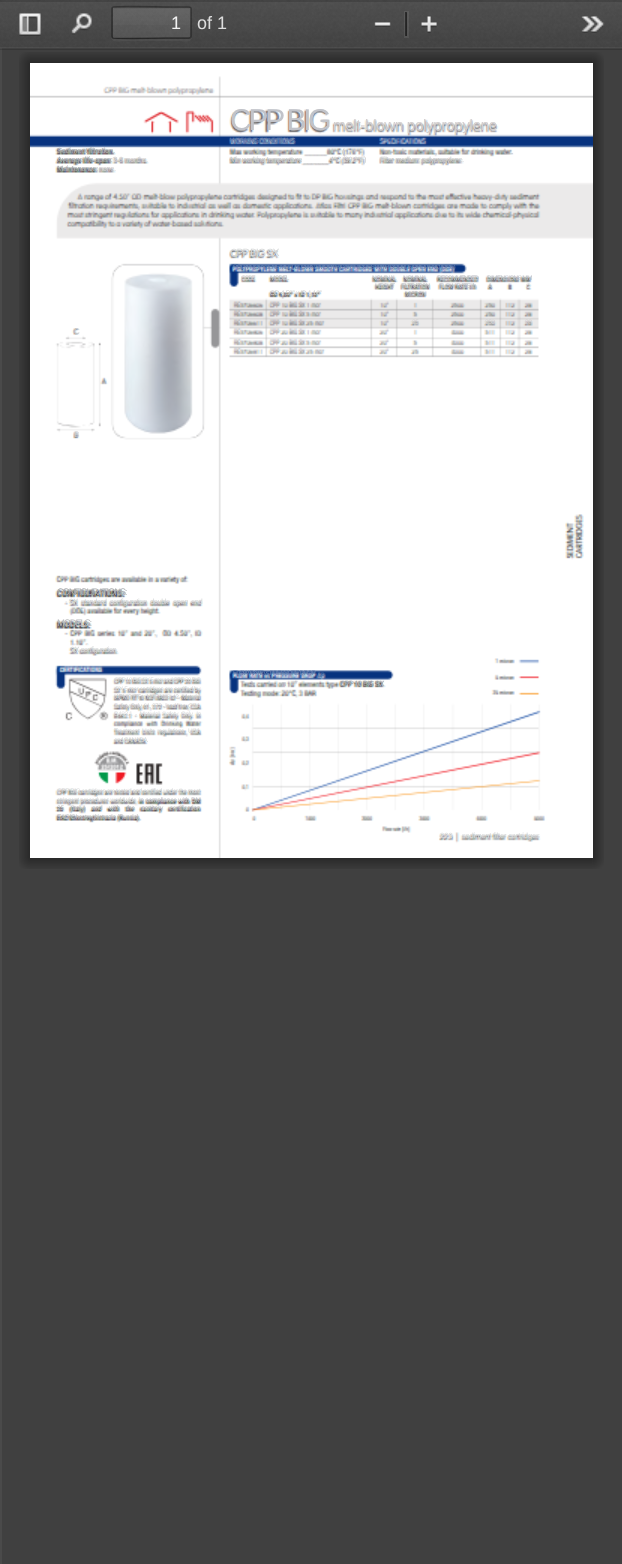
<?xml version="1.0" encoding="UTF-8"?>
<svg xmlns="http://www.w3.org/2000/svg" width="622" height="1564">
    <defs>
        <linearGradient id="g1" gradientUnits="userSpaceOnUse" x1="152" y1="7.5" x2="152" y2="38"><stop offset="0" stop-color="#FFFFFF" stop-opacity="0.05"/><stop offset="1" stop-color="#FFFFFF" stop-opacity="0"/></linearGradient>
    </defs>
    <rect width="100%" height="100%" fill="#404040"/>
    <rect x="0" y="48" width="2" height="1516" fill="#4A4A4A"/>
    <path d="M 0 48 V 50 H 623 V 2 H 622 V 48 Z" fill="#000000" fill-opacity="0.15"/>
    <image x="0" y="0" width="622" height="48" href="img_01.png"/>
    <rect x="0" y="47" width="622" height="2" fill="#FFFFFF" fill-opacity="0.05"/>
    <rect x="0" y="0" width="622" height="2" fill="#000000" fill-opacity="0.15"/>
    <image x="19" y="13" width="22" height="23" href="img_02.png"/>
    <image x="71" y="13" width="21" height="22" href="img_03.png"/>
    <path d="M 111 36 C 111 44 119 41 126 41 H 176 C 184 41 192 44 192 36 C 192 38 191 39 189 39 H 114 C 112 39 111 38 111 36 Z" fill="#FFFFFF" fill-opacity="0.05"/>
    <rect x="113" y="8" width="78" height="30" fill="#FFFFFF" fill-opacity="0.09"/>
    <rect x="113" y="8" width="78" height="17" fill="url(#g1)"/>
    <path d="M 114 9 H 189 C 190 9 190 10 190 10 V 38 C 191 38 191 37 191 36 V 10 C 191 9 190 8 190 8 H 114 C 114 8 113 9 113 9 Z" fill="#000000" fill-opacity="0.05"/>
    <path d="M 112.5 7.5 L 113 7 C 114.5 6 170 7 176.5 7 H 189 L 190.5 7.5" fill="none" stroke="#000000" stroke-opacity="0.32" stroke-width="1.5"/>
    <path d="M 190.5 7.5 C 191 8 191 8.5 191 9 V 36 C 191 36.5 191 37 190.5 37.5" fill="none" stroke="#000000" stroke-opacity="0.38" stroke-width="1.5"/>
    <path d="M 190.5 37.5 L 189 38 H 176.5 C 170 38 114.5 39 113 38 L 112.5 37.5" fill="none" stroke="#000000" stroke-opacity="0.42" stroke-width="1.5"/>
    <path d="M 112.5 37.5 C 112 37 112 36.5 112 36 V 9 C 112 8.5 112 8 112.5 7.5" fill="none" stroke="#000000" stroke-opacity="0.38" stroke-width="1.5"/>
    <text x="171" y="29" font-family="Liberation Sans" font-size="18" fill="#F2F2F2">1</text>
    <text x="197" y="29" font-family="Liberation Sans" font-size="18" fill="#DDDDDD">of 1</text>
    <image x="374" y="22" width="17" height="5" href="img_04.png"/>
    <rect x="405" y="12" width="3" height="25" fill="none" stroke="#FFFFFF" stroke-opacity="0.08" stroke-width="2"/>
    <rect x="405" y="12" width="2" height="24" fill="#000000" fill-opacity="0.5"/>
    <image x="421" y="16" width="16" height="17" href="img_05.png"/>
    <image x="581" y="16" width="24" height="17" href="img_06.png"/>
    <image x="19" y="52" width="585" height="817" href="img_07.png"/>
    <image x="30" y="63" width="563" height="795" href="img_08.png"/>
    <text x="230" y="130" font-family="Liberation Sans" font-size="30" letter-spacing="-3.25" fill="#C1C3C9">CPP BIG</text>
    <text x="333" y="130" font-family="Liberation Sans" font-size="15.1" letter-spacing="-0.3" fill="#D3CFCF">melt-blown polypropylene</text>
    <text x="230" y="143" font-family="Liberation Sans" font-size="7.6" letter-spacing="-1.25" fill="#5975A7">WORKING CONDITIONS</text>
    <text x="57" y="153" font-family="Liberation Sans" font-size="7.6" letter-spacing="-0.25" fill="#AAADAF">Sediment filtration.</text>
    <text x="292" y="154" font-family="Liberation Sans" font-size="7.6" letter-spacing="-1" fill="#BFC0C1">t</text>
    <text x="342" y="154" font-family="Liberation Sans" font-size="7.6" letter-spacing="-1" fill="#BFC0C1">(</text>
    <text x="435" y="154" font-family="Liberation Sans" font-size="7.6" letter-spacing="-0.5" fill="#B9BABB">,</text>
    <text x="504" y="154" font-family="Liberation Sans" font-size="7.6" letter-spacing="-0.5" fill="#B9BABB">t</text>
    <text x="511" y="154" font-family="Liberation Sans" font-size="7.6" letter-spacing="-0.5" fill="#B9BABB">.</text>
    <text x="57" y="162" font-family="Liberation Sans" font-size="7.6" letter-spacing="-0.3" fill="#AAADAF">Average life-span:</text>
    <text x="113" y="162" font-family="Liberation Sans" font-size="7.6" letter-spacing="-0.5" fill="#D3CFCF">3-6 months.</text>
    <text x="230" y="162" font-family="Liberation Sans" font-size="7.6" letter-spacing="-0.5" fill="#CDCDCD">Min working temperature _______4°C (39.2°F)</text>
    <text x="380" y="162" font-family="Liberation Sans" font-size="7.6" letter-spacing="-0.55" fill="#CDCDCD">Filter medium: polypropylene.</text>
    <text x="57" y="171" font-family="Liberation Sans" font-size="7.6" letter-spacing="-0.4" fill="#AAADAF">Maintenance:</text>
    <text x="99" y="171" font-family="Liberation Sans" font-size="7.6" letter-spacing="-0.5" fill="#D3CFCF">none.</text>
    <text x="71" y="207" font-family="Liberation Sans" font-size="7.6" fill="#BFC0C1">i</text>
    <text x="138" y="207" font-family="Liberation Sans" font-size="7.6" fill="#BFC0C1">,</text>
    <text x="230" y="256" font-family="Liberation Sans" font-size="10.5" letter-spacing="-1.1" fill="#D5D7D7">CPP BIG SX</text>
    <text x="233" y="269" font-family="Liberation Sans" font-size="6.6" letter-spacing="-0.88" fill="#6782B1">POLYPROPYLENE MELT-BLOWN SMOOTH CARTRIDGES WITH DOUBLE OPEN END (DOE)</text>
    <text x="241" y="280" font-family="Liberation Sans" font-size="6.6" letter-spacing="-1.5" fill="#D3CFCF">CODE</text>
    <text x="270" y="280" font-family="Liberation Sans" font-size="6.6" letter-spacing="-1" fill="#C7C8CA">MODEL</text>
    <text x="372" y="280" font-family="Liberation Sans" font-size="6.6" letter-spacing="-0.88" fill="#C1C3C9">NOMINAL</text>
    <text x="403" y="280" font-family="Liberation Sans" font-size="6.6" letter-spacing="-0.88" fill="#C1C3C9">NOMINAL</text>
    <text x="437" y="280" font-family="Liberation Sans" font-size="6.6" letter-spacing="-1.1" fill="#C1C3C9">RECOMMENDED</text>
    <text x="487" y="280" font-family="Liberation Sans" font-size="6.6" letter-spacing="-0.75" fill="#C1C3C9">DIMENSIONS MM</text>
    <text x="375" y="288" font-family="Liberation Sans" font-size="6.6" letter-spacing="-1" fill="#BFC0C1">HEIGHT</text>
    <text x="401" y="288" font-family="Liberation Sans" font-size="6.6" letter-spacing="-0.9" fill="#BFC0C1">FILTRATION</text>
    <text x="439" y="288" font-family="Liberation Sans" font-size="6.6" letter-spacing="-0.75" fill="#C1C3C9">FLOW RATE l/h</text>
    <text x="488" y="288" font-family="Liberation Sans" font-size="6.6" fill="#C7C8CA">A</text>
    <text x="526" y="288" font-family="Liberation Sans" font-size="6.6" fill="#DDDDDD">C</text>
    <text x="270" y="295" font-family="Liberation Sans" font-size="6.6" letter-spacing="-0.3" fill="#CDCDCD">OD 4,50” x ID 1,10”</text>
    <text x="405" y="296" font-family="Liberation Sans" font-size="6.6" letter-spacing="-1" fill="#B9BABB">MICRON</text>
    <text x="412" y="324" font-family="Liberation Sans" font-size="6.6" letter-spacing="-0.5" fill="#D3CFCF">25</text>
    <text x="485" y="324" font-family="Liberation Sans" font-size="6.6" letter-spacing="-0.5" fill="#D3CFCF">250</text>
    <text x="525" y="324" font-family="Liberation Sans" font-size="6.6" letter-spacing="-0.5" fill="#D3CFCF">28</text>
    <text x="74" y="334" font-family="Liberation Sans" font-size="8" fill="#CDCDCD">C</text>
    <text x="74" y="437" font-family="Liberation Sans" font-size="8" fill="#CDCDCD">B</text>
    <text x="57" y="595" font-family="Liberation Sans" font-size="9.5" letter-spacing="-1.25" fill="#AAADAF">CONFIGURATIONS:</text>
    <text x="65" y="604" font-family="Liberation Sans" font-size="7.6" letter-spacing="-0.5" fill="#D5D7D7" xml:space="preserve">- SX  standard  configuration  double  open  end</text>
    <text x="57" y="626" font-family="Liberation Sans" font-size="9.5" letter-spacing="-1.25" fill="#B9BABB">MODELS:</text>
    <text x="154" y="635" font-family="Liberation Sans" font-size="7.6" letter-spacing="-0.55" fill="#CDCDCD">,</text>
    <text x="190" y="635" font-family="Liberation Sans" font-size="7.6" letter-spacing="-0.55" fill="#CDCDCD">,</text>
    <text x="86" y="644" font-family="Liberation Sans" font-size="7.6" fill="#DDDDDD">.</text>
    <text x="70" y="652" font-family="Liberation Sans" font-size="7.6" letter-spacing="-0.6" fill="#D5D7D7">SX configuration.</text>
    <text x="233" y="675" font-family="Liberation Sans" font-size="6.6" letter-spacing="-0.9" fill="#6782B1">FLOW RATE vs PRESSURE DROP</text>
    <text x="317" y="677" font-family="Liberation Sans" font-size="6.6" fill="#5175AA">Δ</text>
    <text x="321" y="676" font-family="Liberation Sans" font-size="6.6" fill="#4A6CA3">p</text>
    <text x="114" y="682" font-family="Liberation Sans" font-size="6.6" letter-spacing="-0.85" fill="#D5D7D7">CPP 10 BIG SX 5 mcr and CPP 20 BIG</text>
    <text x="251" y="686" font-family="Liberation Sans" font-size="7.6" letter-spacing="-0.5" fill="#C1C3C9">t</text>
    <text x="282" y="686" font-family="Liberation Sans" font-size="7.6" letter-spacing="-0.5" fill="#C1C3C9">n</text>
    <text x="295" y="686" font-family="Liberation Sans" font-size="7.6" letter-spacing="-0.5" fill="#C1C3C9">”</text>
    <text x="340" y="686" font-family="Liberation Sans" font-size="7.6" letter-spacing="-0.75" fill="#AAADAF">CPP 10 BIG SX</text>
    <text x="115" y="691" font-family="Liberation Sans" font-size="6.6" letter-spacing="-0.5" fill="#D5D7D7">SX 5 mcr cartridges are certified by</text>
    <text x="114" y="699" font-family="Liberation Sans" font-size="6.6" letter-spacing="-0.7" fill="#CDCDCD">IAPMO RT to NSF/ANSI 42 - Material</text>
    <text x="114" y="708" font-family="Liberation Sans" font-size="6.6" letter-spacing="-0.6" fill="#D3CFCF">Safety Only, 61, 372 - lead free, CSA</text>
    <text x="114" y="716" font-family="Liberation Sans" font-size="6.6" letter-spacing="-0.45" fill="#DDDDDD" xml:space="preserve">B483.1  -  Material  Safety  Only.  In</text>
    <text x="114" y="733" font-family="Liberation Sans" font-size="6.6" letter-spacing="-0.5" fill="#D5D7D7" xml:space="preserve">Treatment  Units  regulations,  USA</text>
    <text x="114" y="742" font-family="Liberation Sans" font-size="6.6" letter-spacing="-0.75" fill="#D5D7D7">and CANADA.</text>
    <text x="57" y="793" font-family="Liberation Sans" font-size="6.6" letter-spacing="-0.5" fill="#D5D7D7">CPP BIG cartridges are tested and certified under the most</text>
    <text x="57" y="802" font-family="Liberation Sans" font-size="6.6" letter-spacing="-0.4" fill="#D5D7D7">stringent procedures worldwide,</text>
    <text x="139" y="802" font-family="Liberation Sans" font-size="6.6" letter-spacing="-0.2" fill="#C1C3C9">in compliance with DM</text>
    <text x="57" y="810" font-family="Liberation Sans" font-size="6.6" letter-spacing="-0.2" fill="#BFC0C1" xml:space="preserve">25    (Italy)    and    with    the    sanitary    certification</text>
    <text x="57" y="819" font-family="Liberation Sans" font-size="6.6" letter-spacing="-0.4" fill="#B9BABB">EAC/Ghostreghistrazia (Russia).</text>
    <text x="440" y="838" font-family="Liberation Sans" font-size="7.6" fill="#DDDDDD">223</text>
    <text x="462" y="838" font-family="Liberation Sans" font-size="7.6" letter-spacing="-0.2" fill="#D5D7D7">sediment filter cartridges</text>
</svg>
